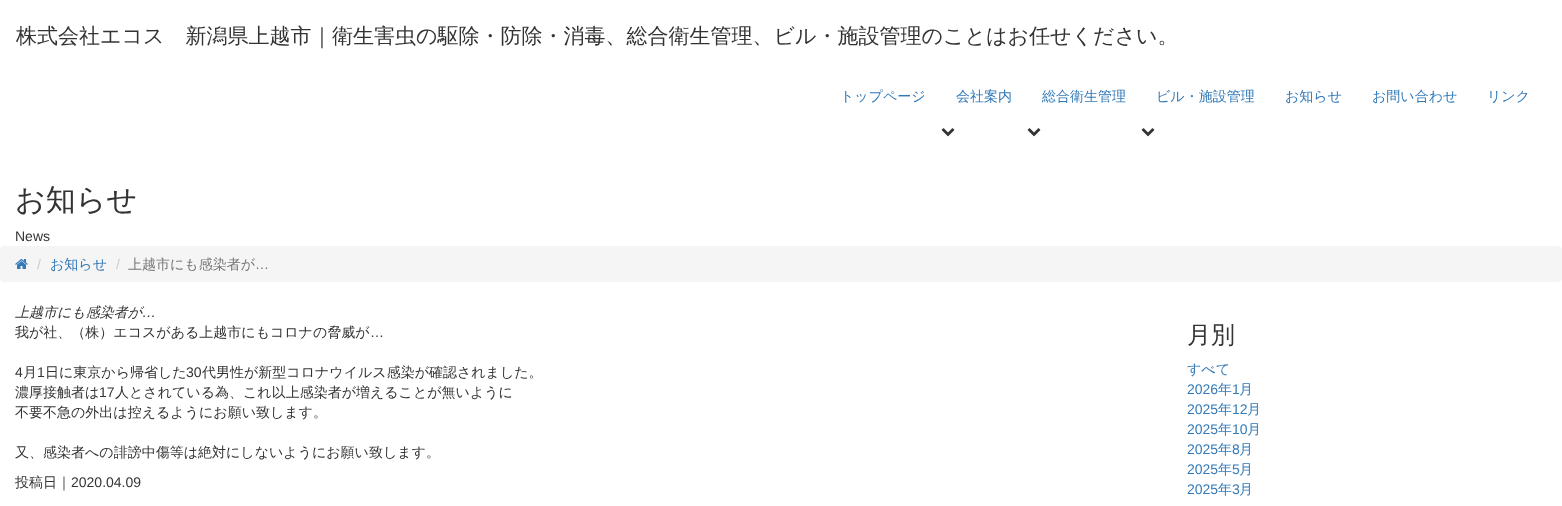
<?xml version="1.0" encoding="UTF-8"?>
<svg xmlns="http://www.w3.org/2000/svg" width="1562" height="506">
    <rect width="100%" height="100%" fill="#FFFFFF"/>
    <text x="16" y="43" font-family="WenQuanYi Zen Hei" font-size="21" font-weight="500" fill="#333333">株式会社エコス　新潟県上越市｜衛生害虫の駆除・防除・消毒、総合衛生管理、ビル・施設管理のことはお任せください。</text>
    <text x="840" y="101" font-family="WenQuanYi Zen Hei" font-size="14" font-weight="500" fill="#337AB7">トップページ</text>
    <text x="956" y="101" font-family="WenQuanYi Zen Hei" font-size="14" font-weight="500" fill="#337AB7">会社案内</text>
    <image x="941" y="128" width="14" height="9" href="img_01.png"/>
    <text x="1042" y="101" font-family="WenQuanYi Zen Hei" font-size="14" font-weight="500" fill="#337AB7">総合衛生管理</text>
    <image x="1027" y="128" width="14" height="9" href="img_01.png"/>
    <text x="1156" y="101" font-family="WenQuanYi Zen Hei" font-size="14" font-weight="500" fill="#337AB7">ビル・施設管理</text>
    <image x="1141" y="128" width="14" height="9" href="img_01.png"/>
    <text x="1285" y="101" font-family="WenQuanYi Zen Hei" font-size="14" font-weight="500" fill="#337AB7">お知らせ</text>
    <text x="1372" y="101" font-family="WenQuanYi Zen Hei" font-size="14" font-weight="500" fill="#337AB7">お問い合わせ</text>
    <text x="1487" y="101" font-family="WenQuanYi Zen Hei" font-size="14" font-weight="500" fill="#337AB7">リンク</text>
    <text x="15" y="210" font-family="WenQuanYi Zen Hei" font-size="30" font-weight="500" fill="#333333">お知らせ</text>
    <text x="15" y="241" font-family="Liberation Sans" font-size="14" fill="#333333">News</text>
    <rect x="0" y="246" width="1562" height="36" rx="4" fill="#F5F5F5"/>
    <image x="15" y="259" width="13" height="10" href="img_02.png"/>
    <text x="37" y="269" font-family="Liberation Sans" font-size="14" fill="#CCCCCC">/</text>
    <text x="50" y="269" font-family="WenQuanYi Zen Hei" font-size="14" font-weight="500" fill="#337AB7">お知らせ</text>
    <text x="116" y="269" font-family="Liberation Sans" font-size="14" fill="#CCCCCC">/</text>
    <text x="128" y="269" font-family="WenQuanYi Zen Hei" font-size="14" font-weight="500" fill="#777777">上越市にも感染者が</text>
    <text x="255" y="269" font-family="Liberation Sans" font-size="14" fill="#777777">…</text>
    <text x="15" y="317" font-family="WenQuanYi Zen Hei" font-size="14" font-weight="500" font-style="italic" fill="#333333">上越市にも感染者が</text>
    <text x="142" y="317" font-family="Liberation Sans" font-size="14" font-style="italic" fill="#333333">…</text>
    <text x="15" y="337" font-family="WenQuanYi Zen Hei" font-size="14" font-weight="500" fill="#333333">我が社、（株）エコスがある上越市にもコロナの脅威が</text>
    <text x="370" y="337" font-family="Liberation Sans" font-size="14" fill="#333333">…</text>
    <text x="15" y="377" font-family="Liberation Sans" font-size="14" fill="#333333">4</text>
    <text x="23" y="377" font-family="WenQuanYi Zen Hei" font-size="14" font-weight="500" fill="#333333">月</text>
    <text x="37" y="377" font-family="Liberation Sans" font-size="14" fill="#333333">1</text>
    <text x="45" y="377" font-family="WenQuanYi Zen Hei" font-size="14" font-weight="500" fill="#333333">日に東京から帰省した</text>
    <text x="186" y="377" font-family="Liberation Sans" font-size="14" fill="#333333">30</text>
    <text x="202" y="377" font-family="WenQuanYi Zen Hei" font-size="14" font-weight="500" fill="#333333">代男性が新型コロナウイルス感染が確認されました。</text>
    <text x="15" y="397" font-family="WenQuanYi Zen Hei" font-size="14" font-weight="500" fill="#333333">濃厚接触者は</text>
    <text x="99" y="397" font-family="Liberation Sans" font-size="14" fill="#333333">17</text>
    <text x="115" y="397" font-family="WenQuanYi Zen Hei" font-size="14" font-weight="500" fill="#333333">人とされている為、これ以上感染者が増えることが無いように</text>
    <text x="15" y="417" font-family="WenQuanYi Zen Hei" font-size="14" font-weight="500" fill="#333333">不要不急の外出は控えるようにお願い致します。</text>
    <text x="15" y="457" font-family="WenQuanYi Zen Hei" font-size="14" font-weight="500" fill="#333333">又、感染者への誹謗中傷等は絶対にしないようにお願い致します。</text>
    <text x="15" y="487" font-family="WenQuanYi Zen Hei" font-size="14" font-weight="500" fill="#333333">投稿日｜</text>
    <text x="71" y="487" font-family="Liberation Sans" font-size="14" fill="#333333">2020.04.09</text>
    <text x="1187" y="343" font-family="WenQuanYi Zen Hei" font-size="24" font-weight="500" fill="#333333">月別</text>
    <text x="1187" y="374" font-family="WenQuanYi Zen Hei" font-size="14" font-weight="500" fill="#337AB7">すべて</text>
    <text x="1187" y="394" font-family="Liberation Sans" font-size="14" fill="#337AB7">2026</text>
    <text x="1218" y="394" font-family="WenQuanYi Zen Hei" font-size="14" font-weight="500" fill="#337AB7">年</text>
    <text x="1232" y="394" font-family="Liberation Sans" font-size="14" fill="#337AB7">1</text>
    <text x="1239" y="394" font-family="WenQuanYi Zen Hei" font-size="14" font-weight="500" fill="#337AB7">月</text>
    <text x="1187" y="414" font-family="Liberation Sans" font-size="14" fill="#337AB7">2025</text>
    <text x="1218" y="414" font-family="WenQuanYi Zen Hei" font-size="14" font-weight="500" fill="#337AB7">年</text>
    <text x="1232" y="414" font-family="Liberation Sans" font-size="14" fill="#337AB7">12</text>
    <text x="1247" y="414" font-family="WenQuanYi Zen Hei" font-size="14" font-weight="500" fill="#337AB7">月</text>
    <text x="1187" y="434" font-family="Liberation Sans" font-size="14" fill="#337AB7">2025</text>
    <text x="1218" y="434" font-family="WenQuanYi Zen Hei" font-size="14" font-weight="500" fill="#337AB7">年</text>
    <text x="1232" y="434" font-family="Liberation Sans" font-size="14" fill="#337AB7">10</text>
    <text x="1247" y="434" font-family="WenQuanYi Zen Hei" font-size="14" font-weight="500" fill="#337AB7">月</text>
    <text x="1187" y="454" font-family="Liberation Sans" font-size="14" fill="#337AB7">2025</text>
    <text x="1218" y="454" font-family="WenQuanYi Zen Hei" font-size="14" font-weight="500" fill="#337AB7">年</text>
    <text x="1232" y="454" font-family="Liberation Sans" font-size="14" fill="#337AB7">8</text>
    <text x="1239" y="454" font-family="WenQuanYi Zen Hei" font-size="14" font-weight="500" fill="#337AB7">月</text>
    <text x="1187" y="474" font-family="Liberation Sans" font-size="14" fill="#337AB7">2025</text>
    <text x="1218" y="474" font-family="WenQuanYi Zen Hei" font-size="14" font-weight="500" fill="#337AB7">年</text>
    <text x="1232" y="474" font-family="Liberation Sans" font-size="14" fill="#337AB7">5</text>
    <text x="1239" y="474" font-family="WenQuanYi Zen Hei" font-size="14" font-weight="500" fill="#337AB7">月</text>
    <text x="1187" y="494" font-family="Liberation Sans" font-size="14" fill="#337AB7">2025</text>
    <text x="1218" y="494" font-family="WenQuanYi Zen Hei" font-size="14" font-weight="500" fill="#337AB7">年</text>
    <text x="1232" y="494" font-family="Liberation Sans" font-size="14" fill="#337AB7">3</text>
    <text x="1239" y="494" font-family="WenQuanYi Zen Hei" font-size="14" font-weight="500" fill="#337AB7">月</text>
</svg>
